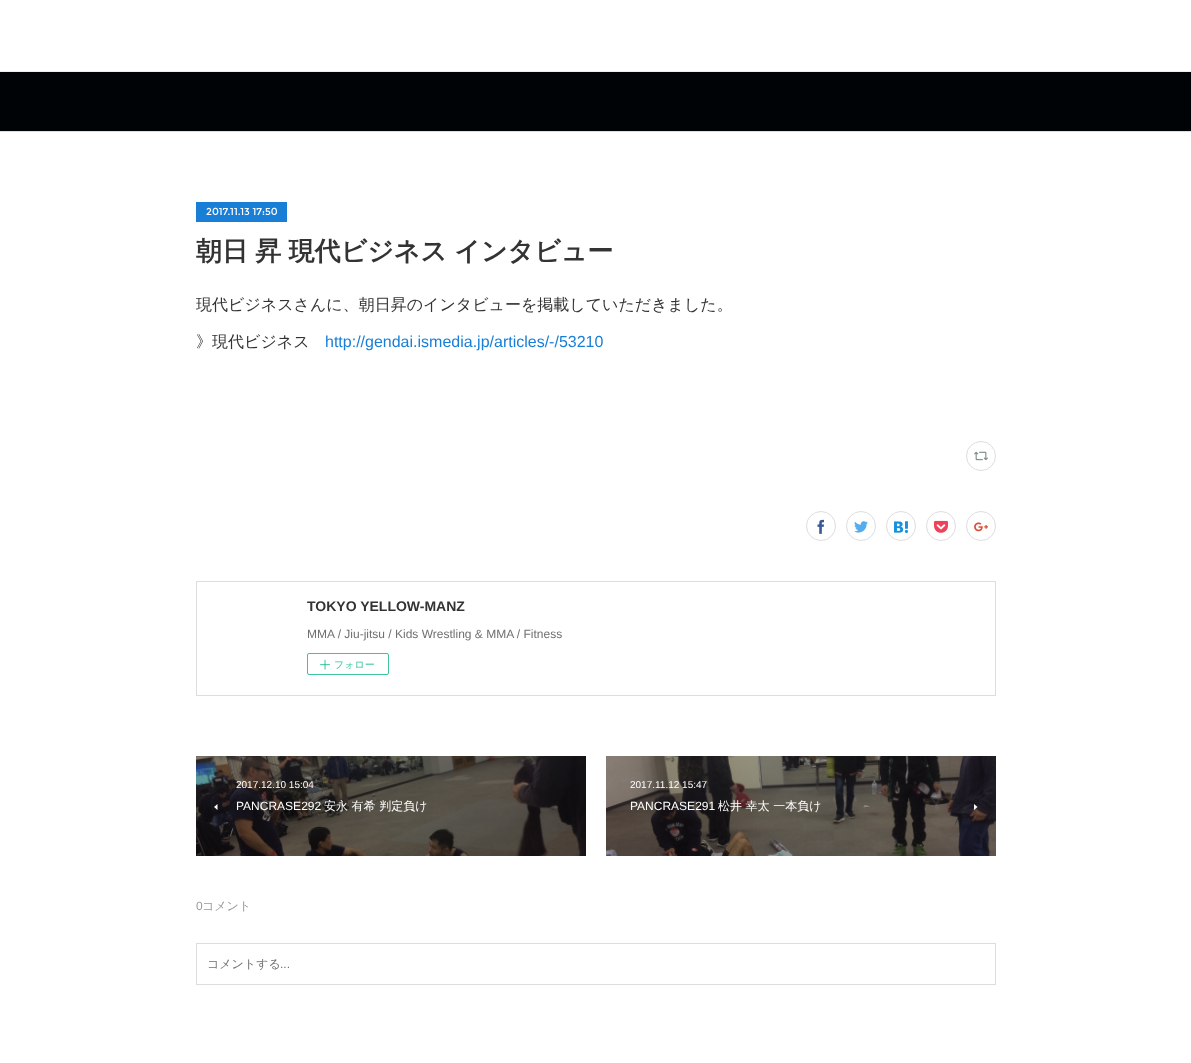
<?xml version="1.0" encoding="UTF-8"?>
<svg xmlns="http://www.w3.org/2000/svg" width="1191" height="1063">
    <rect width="100%" height="100%" fill="#FFFFFF"/>
    <rect x="0" y="71" width="1191" height="1" fill="#EEEEEE"/>
    <rect x="0" y="72" width="1191" height="59" fill="#000305"/>
    <rect x="0" y="131" width="1191" height="1" fill="#DDDDDD"/>
    <rect x="196" y="202" width="91" height="20" fill="#197FD6"/>
    <text x="206" y="215" font-family="Montserrat" font-size="10" fill="#FFFFFF">2017.11.13 17:50</text>
    <text x="196" y="260" word-spacing="-0.5" font-family="WenQuanYi Zen Hei" font-size="26" font-weight="700" fill="#333333">朝日 昇 現代ビジネス インタビュー</text>
    <text x="196" y="310" font-family="WenQuanYi Zen Hei" font-size="16" font-weight="500" fill="#333333">現代ビジネスさんに、朝日昇のインタビューを掲載していただきました。</text>
    <text x="196" y="347" font-family="WenQuanYi Zen Hei" font-size="16" font-weight="500" fill="#333333">》現代ビジネス</text>
    <text x="325" y="347" font-family="Liberation Sans" font-size="16" fill="#197FD6">http://gendai.ismedia.jp/articles/-/53210</text>
    <circle cx="981" cy="456" r="14.5" fill="none" stroke="#DDDDDD"/>
    <image x="974" y="451" width="14" height="10" href="img_01.png"/>
    <circle cx="821" cy="526" r="14.5" fill="none" stroke="#DDDDDD"/>
    <image x="817" y="519" width="7" height="15" href="img_02.png"/>
    <circle cx="861" cy="526" r="14.5" fill="none" stroke="#DDDDDD"/>
    <image x="854" y="521" width="14" height="12" href="img_03.png"/>
    <circle cx="901" cy="526" r="14.5" fill="none" stroke="#DDDDDD"/>
    <image x="894" y="521" width="14" height="12" href="img_04.png"/>
    <circle cx="941" cy="526" r="14.5" fill="none" stroke="#DDDDDD"/>
    <image x="934" y="520" width="14" height="13" href="img_05.png"/>
    <circle cx="981" cy="526" r="14.5" fill="none" stroke="#DDDDDD"/>
    <image x="974" y="522" width="14" height="10" href="img_06.png"/>
    <rect x="196.5" y="581.5" width="799" height="114" fill="none" stroke="#DDDDDD"/>
    <text x="307" y="611" font-family="Liberation Sans" font-size="14" font-weight="700" fill="#333333">TOKYO YELLOW-MANZ</text>
    <text x="307" y="638" font-family="Liberation Sans" font-size="12" fill="#707070">MMA / Jiu-jitsu / Kids Wrestling &amp; MMA / Fitness</text>
    <rect x="307.5" y="653.5" width="81" height="21" rx="1.5" fill="none" stroke="#3DC49D"/>
    <image x="320" y="659" width="10" height="11" href="img_07.png"/>
    <text x="334" y="668" font-family="WenQuanYi Zen Hei" font-size="10" font-weight="500" fill="#3DC49D">フォロー</text>
    <image x="196" y="756" width="390" height="100" href="img_08.png"/>
    <text x="236" y="788" font-family="Liberation Sans" font-size="10" fill="#FFFFFF">2017.12.10 15:04</text>
    <path d="M 217.5 810 V 804 L 214 807 Z" fill="#FFFFFF"/>
    <text x="236" y="810" font-family="Liberation Sans" font-size="12" fill="#FFFFFF">PANCRASE292</text>
    <text x="324" y="810" font-family="WenQuanYi Zen Hei" font-size="12" font-weight="500" fill="#FFFFFF">安永 有希 判定負け</text>
    <image x="606" y="756" width="390" height="100" href="img_09.png"/>
    <text x="630" y="788" font-family="Liberation Sans" font-size="10" fill="#FFFFFF">2017.11.12 15:47</text>
    <text x="630" y="810" font-family="Liberation Sans" font-size="12" fill="#FFFFFF">PANCRASE291</text>
    <text x="718" y="810" font-family="WenQuanYi Zen Hei" font-size="12" font-weight="500" fill="#FFFFFF">松井 幸太 一本負け</text>
    <path d="M 974 804 V 810 L 977.5 807 Z" fill="#FFFFFF"/>
    <text x="196" y="910" font-family="Liberation Sans" font-size="12" fill="#999999">0</text>
    <text x="202" y="910" font-family="WenQuanYi Zen Hei" font-size="12" font-weight="500" fill="#999999">コメント</text>
    <rect x="196.5" y="943.5" width="799" height="41" fill="none" stroke="#DDDDDD"/>
    <text x="207" y="968" font-family="WenQuanYi Zen Hei" font-size="12" font-weight="500" fill="#707070">コメントする</text>
    <text x="280" y="968" font-family="Liberation Sans" font-size="12" fill="#707070">...</text>
</svg>
